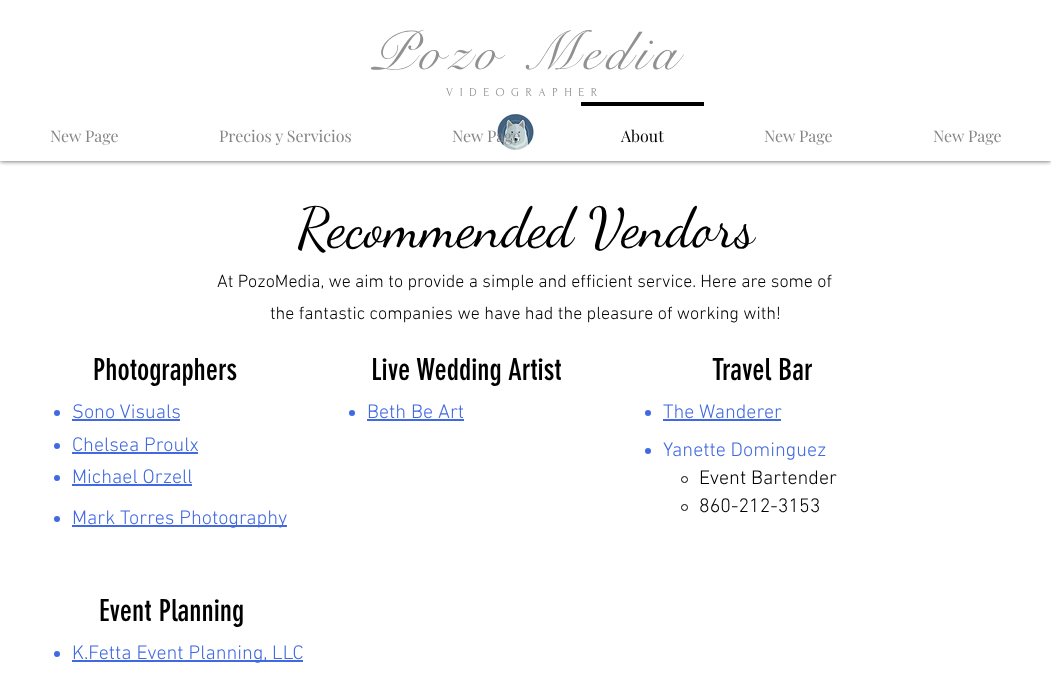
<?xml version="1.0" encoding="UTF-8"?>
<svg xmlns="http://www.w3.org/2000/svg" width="1051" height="682">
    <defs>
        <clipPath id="clip1"><rect x="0" y="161" width="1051" height="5"/></clipPath>
        <filter id="blur1" x="-50%" y="-200%" width="200%" height="500%"><feGaussianBlur stdDeviation="2.5"/></filter>
    </defs>
    <rect width="100%" height="100%" fill="#FFFFFF"/>
    <g clip-path="url(#clip1)">
        <rect x="0" y="0" width="1051" height="161" fill="#000000" fill-opacity="0.7" filter="url(#blur1)"/>
    </g>
    <text x="371" y="69" font-family="'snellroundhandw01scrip'" font-size="54" letter-spacing="5.5" fill="#919191">Pozo Media</text>
    <text x="446" y="96" font-family="Forum" font-size="12" letter-spacing="6.6" fill="#919191">VIDEOGRAPHER</text>
    <image x="497" y="113" width="37" height="37" href="img_01.png"/>
    <text x="50" y="142" font-family="Playfair Display" font-size="16" fill="#858585">New Page</text>
    <text x="219" y="142" font-family="Playfair Display" font-size="16" fill="#858585">Precios y Servicios</text>
    <text x="452" y="142" font-family="Playfair Display" font-size="16" fill="#858585">New Page</text>
    <rect x="581" y="102" width="123" height="4" fill="#000000"/>
    <text x="621" y="142" font-family="Playfair Display" font-size="16" fill="#000000">About</text>
    <text x="764" y="142" font-family="Playfair Display" font-size="16" fill="#858585">New Page</text>
    <text x="933" y="142" font-family="Playfair Display" font-size="16" fill="#858585">New Page</text>
    <text x="297" y="246" font-family="Dancing Script" font-size="56" fill="#000000">Recommended Vendors</text>
    <text x="217" y="287" font-family="'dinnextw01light'" font-size="18" font-weight="300" fill="#000000">At PozoMedia, we aim to provide a simple and efficient service. Here are some of</text>
    <text x="270" y="319" font-family="'dinnextw01light'" font-size="18" font-weight="300" fill="#000000">the fantastic companies we have had the pleasure of working with!</text>
    <text x="93" y="380" font-family="'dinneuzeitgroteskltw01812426'" font-size="30" fill="#000000">Photographers</text>
    <text x="371" y="380" font-family="'dinneuzeitgroteskltw01812426'" font-size="30" fill="#000000">Live Wedding Artist</text>
    <text x="712" y="380" font-family="'dinneuzeitgroteskltw01812426'" font-size="30" fill="#000000">Travel Bar</text>
    <circle cx="57" cy="413" r="3" fill="#4169E1"/>
    <text x="72" y="418" font-family="'dinnextw01light'" font-size="20" font-weight="300" fill="#4169E1">Sono Visuals</text>
    <rect x="72" y="419" width="108" height="2" fill="#4169E1"/>
    <circle cx="352" cy="413" r="3" fill="#4169E1"/>
    <text x="367" y="418" font-family="'dinnextw01light'" font-size="20" font-weight="300" fill="#4169E1">Beth Be Art</text>
    <rect x="367" y="419" width="97" height="2" fill="#4169E1"/>
    <circle cx="648" cy="413" r="3" fill="#4169E1"/>
    <text x="663" y="418" font-family="'dinnextw01light'" font-size="20" font-weight="300" fill="#4169E1">The Wanderer</text>
    <rect x="663" y="419" width="118" height="2" fill="#4169E1"/>
    <circle cx="57" cy="446" r="3" fill="#4169E1"/>
    <text x="72" y="451" font-family="'dinnextw01light'" font-size="20" font-weight="300" fill="#4169E1">Chelsea Proulx</text>
    <rect x="72" y="452" width="126" height="2" fill="#4169E1"/>
    <circle cx="648" cy="451" r="3" fill="#4169E1"/>
    <text x="663" y="456" font-family="'dinnextw01light'" font-size="20" font-weight="300" fill="#4169E1">Yanette Dominguez</text>
    <circle cx="684.5" cy="479.5" r="3" fill="none" stroke="#000000"/>
    <text x="699" y="484" font-family="'dinnextw01light'" font-size="20" font-weight="300" fill="#000000">Event Bartender</text>
    <circle cx="684.5" cy="507.5" r="3" fill="none" stroke="#000000"/>
    <text x="699" y="512" font-family="'dinnextw01light'" font-size="20" font-weight="300" fill="#000000">860-212-3153</text>
    <circle cx="57" cy="478" r="3" fill="#4169E1"/>
    <text x="72" y="483" font-family="'dinnextw01light'" font-size="20" font-weight="300" fill="#4169E1">Michael Orzell</text>
    <rect x="72" y="484" width="120" height="2" fill="#4169E1"/>
    <circle cx="57" cy="519" r="3" fill="#4169E1"/>
    <rect x="72" y="525" width="215" height="2" fill="#4169E1"/>
    <text x="72" y="524" font-family="'dinnextw01light'" font-size="20" font-weight="300" fill="#4169E1">Mark Torres Photography</text>
    <text x="99" y="621" font-family="'dinneuzeitgroteskltw01812426'" font-size="30" fill="#000000">Event Planning</text>
    <circle cx="57" cy="654" r="3" fill="#4169E1"/>
    <rect x="72" y="660" width="231" height="2" fill="#4169E1"/>
    <text x="72" y="659" font-family="'dinnextw01light'" font-size="20" font-weight="300" fill="#4169E1">K.Fetta Event Planning, LLC</text>
</svg>
